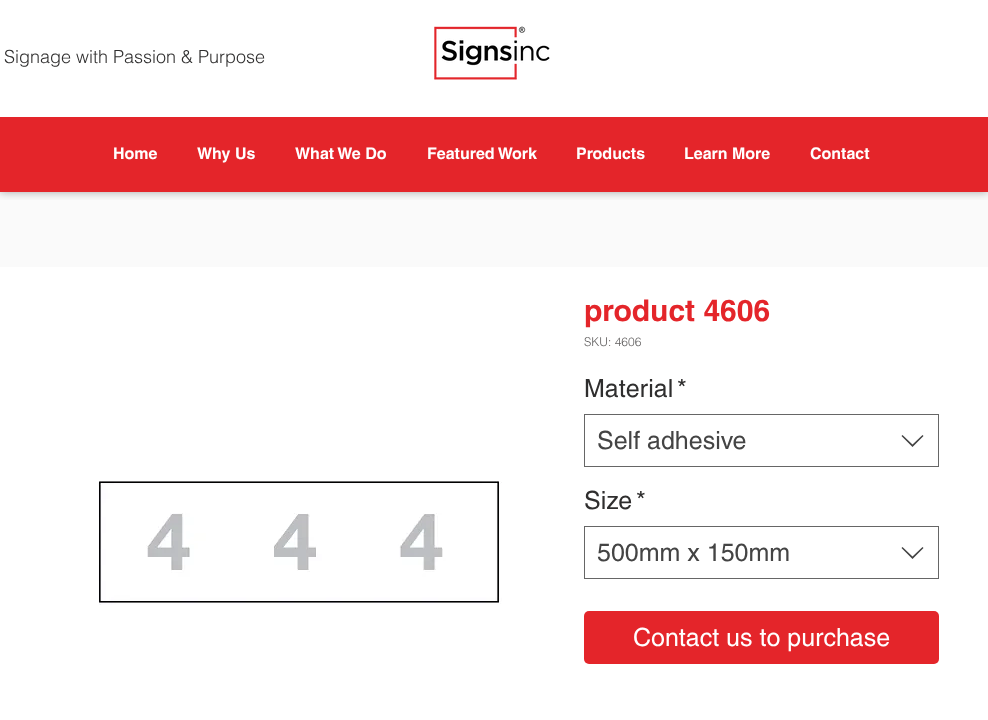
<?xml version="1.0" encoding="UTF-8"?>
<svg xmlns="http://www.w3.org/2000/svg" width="988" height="720">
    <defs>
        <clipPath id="clip1"><rect x="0" y="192" width="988" height="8"/></clipPath>
        <filter id="blur1" x="-50%" y="-200%" width="200%" height="500%"><feGaussianBlur stdDeviation="5"/></filter>
    </defs>
    <rect width="100%" height="100%" fill="#FFFFFF"/>
    <rect x="0" y="192" width="988" height="75" fill="#FAFAFA"/>
    <g clip-path="url(#clip1)">
        <rect x="0" y="0" width="988" height="192" fill="#000000" fill-opacity="0.35" filter="url(#blur1)"/>
    </g>
    <text x="4" y="63" font-family="helvetica" font-size="18" font-weight="300" fill="#2F2E2E">Signage with Passion &amp; Purpose</text>
    <image x="434" y="26" width="116" height="54" href="img_01.png"/>
    <rect x="0" y="117" width="988" height="75" fill="#E4252A"/>
    <text x="113" y="159" font-family="helvetica" font-size="16" font-weight="700" fill="#FFFFFF">Home</text>
    <text x="197" y="159" font-family="helvetica" font-size="16" font-weight="700" fill="#FFFFFF">Why Us</text>
    <text x="295" y="159" font-family="helvetica" font-size="16" font-weight="700" fill="#FFFFFF">What We Do</text>
    <text x="427" y="159" font-family="helvetica" font-size="16" font-weight="700" fill="#FFFFFF">Featured Work</text>
    <text x="576" y="159" font-family="helvetica" font-size="16" font-weight="700" fill="#FFFFFF">Products</text>
    <text x="684" y="159" font-family="helvetica" font-size="16" font-weight="700" fill="#FFFFFF">Learn More</text>
    <text x="810" y="159" font-family="helvetica" font-size="16" font-weight="700" fill="#FFFFFF">Contact</text>
    <image x="98" y="481" width="404" height="124" href="img_02.png"/>
    <text x="584" y="321" font-family="helvetica" font-size="30" font-weight="700" fill="#E4252A">product 4606</text>
    <text x="584" y="346" font-family="helvetica" font-size="12" font-weight="300" fill="#605E5E">SKU: 4606</text>
    <text x="584" y="397" font-family="helvetica" font-size="25" fill="#2F2E2E">Material</text>
    <text x="677" y="397" font-family="helvetica" font-size="25" fill="#2F2E2E">*</text>
    <rect x="584.5" y="414.5" width="354" height="52" fill="none" stroke="#666666"/>
    <text x="597" y="449" font-family="helvetica" font-size="25" fill="#444444">Self adhesive</text>
    <path d="M 922.5 435 L 923.5 436 L 912.5 447 L 901.5 436 L 902.5 435 L 912.5 444.5 Z" fill="#444444" fill-rule="evenodd"/>
    <text x="584" y="509" font-family="helvetica" font-size="25" fill="#2F2E2E">Size</text>
    <text x="636" y="509" font-family="helvetica" font-size="25" fill="#2F2E2E">*</text>
    <rect x="584.5" y="526.5" width="354" height="52" fill="none" stroke="#666666"/>
    <text x="597" y="561" font-family="helvetica" font-size="25" fill="#444444">500mm x 150mm</text>
    <path d="M 922.5 547 L 923.5 548 L 912.5 559 L 901.5 548 L 902.5 547 L 912.5 556.5 Z" fill="#444444" fill-rule="evenodd"/>
    <rect x="584" y="611" width="355" height="53" rx="5" fill="#E4252A"/>
    <text x="633" y="646" font-family="helvetica" font-size="25" fill="#FFFFFF">Contact us to purchase</text>
</svg>
